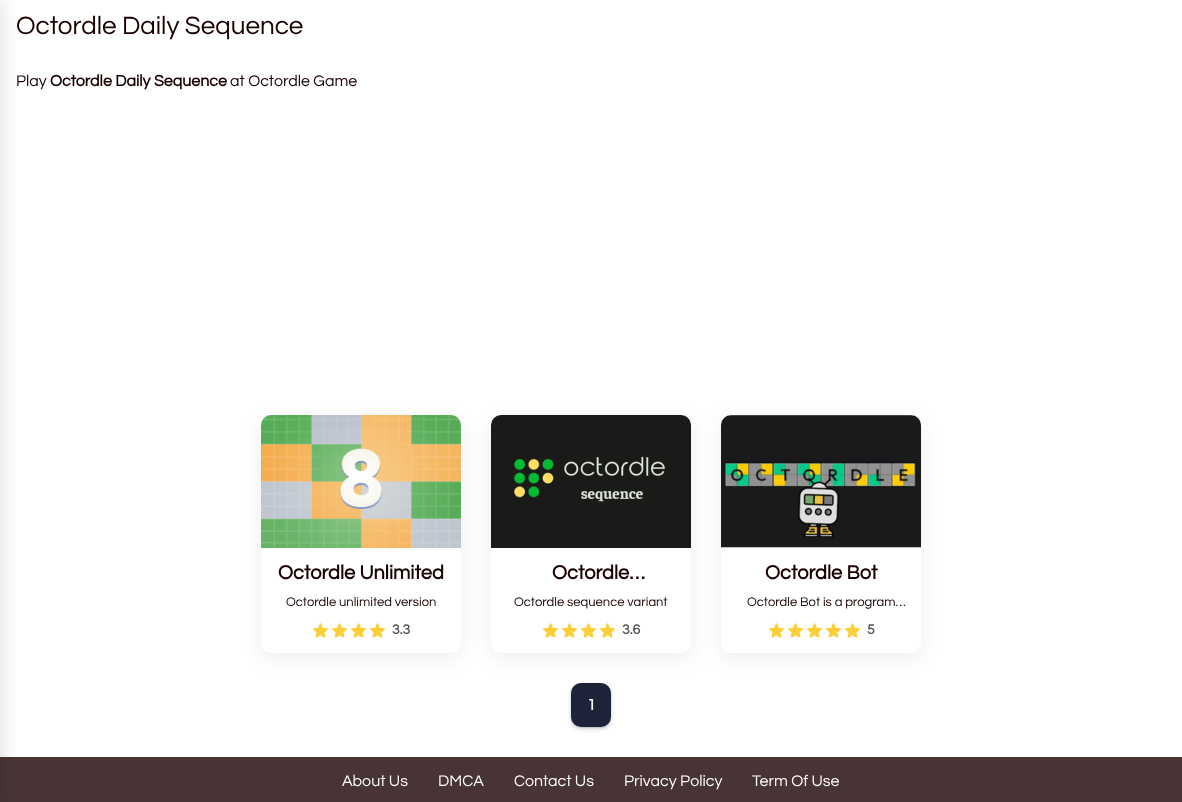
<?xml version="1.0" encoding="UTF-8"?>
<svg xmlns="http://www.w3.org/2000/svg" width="1182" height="802">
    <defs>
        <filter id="blur1" x="-50%" y="-200%" width="200%" height="500%"><feGaussianBlur stdDeviation="10"/></filter>
        <filter id="blur2" x="-50%" y="-200%" width="200%" height="500%"><feGaussianBlur stdDeviation="1.5"/></filter>
        <filter id="blur3" x="-50%" y="-200%" width="200%" height="500%"><feGaussianBlur stdDeviation="2.5"/></filter>
    </defs>
    <rect width="100%" height="100%" fill="#FFFFFF"/>
    <rect x="0" y="757" width="1182" height="45" fill="#483434"/>
    <rect x="-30" y="0" width="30" height="802" fill="#1A0101" fill-opacity="0.15" filter="url(#blur1)"/>
    <text x="16" y="34" font-family="Questrial" font-size="26" fill="#1A0101">Octordle Daily Sequence</text>
    <text x="16" y="86" font-family="Questrial" font-size="16" fill="#1A0101">Play</text>
    <text x="50" y="86" font-family="Questrial" font-size="16" font-weight="700" fill="#1A0101">Octordle Daily Sequence</text>
    <text x="230" y="86" font-family="Questrial" font-size="16" fill="#1A0101">at Octordle Game</text>
    <rect x="261" y="420" width="200" height="238" rx="10" fill="#000000" fill-opacity="0.07" filter="url(#blur1)"/>
    <rect x="261" y="415" width="200" height="238" rx="10" fill="#FFFFFF"/>
    <rect x="491" y="420" width="200" height="238" rx="10" fill="#000000" fill-opacity="0.07" filter="url(#blur1)"/>
    <image x="261" y="415" width="200" height="133" href="img_01.png"/>
    <text x="278" y="579" font-family="Questrial" font-size="20" font-weight="700" fill="#1A0101">Octordle Unlimited</text>
    <text x="286" y="606" font-family="Questrial" font-size="13" fill="#1A0101">Octordle unlimited version</text>
    <image x="313" y="623" width="15" height="15" href="img_02.png"/>
    <image x="332" y="623" width="15" height="15" href="img_02.png"/>
    <image x="351" y="623" width="15" height="15" href="img_02.png"/>
    <image x="370" y="623" width="15" height="15" href="img_02.png"/>
    <text x="392" y="634" font-family="Questrial" font-size="14" font-weight="700" fill="#555555">3.3</text>
    <rect x="491" y="415" width="200" height="238" rx="10" fill="#FFFFFF"/>
    <rect x="721" y="420" width="200" height="238" rx="10" fill="#000000" fill-opacity="0.07" filter="url(#blur1)"/>
    <image x="491" y="415" width="200" height="133" href="img_03.png"/>
    <text x="552" y="579" font-family="Questrial" font-size="20" font-weight="700" fill="#1A0101">Octordle…</text>
    <text x="514" y="606" font-family="Questrial" font-size="13" fill="#1A0101">Octordle sequence variant</text>
    <image x="543" y="623" width="15" height="15" href="img_02.png"/>
    <image x="562" y="623" width="15" height="15" href="img_02.png"/>
    <image x="581" y="623" width="15" height="15" href="img_02.png"/>
    <image x="600" y="623" width="15" height="15" href="img_02.png"/>
    <text x="622" y="634" font-family="Questrial" font-size="14" font-weight="700" fill="#555555">3.6</text>
    <rect x="721" y="415" width="200" height="238" rx="10" fill="#FFFFFF"/>
    <image x="721" y="415" width="200" height="133" href="img_04.png"/>
    <text x="765" y="579" font-family="Questrial" font-size="20" font-weight="700" fill="#1A0101">Octordle Bot</text>
    <text x="747" y="606" font-family="Questrial" font-size="13" fill="#1A0101">Octordle Bot is a program…</text>
    <image x="769" y="623" width="15" height="15" href="img_02.png"/>
    <image x="788" y="623" width="15" height="15" href="img_02.png"/>
    <image x="807" y="623" width="15" height="15" href="img_02.png"/>
    <image x="826" y="623" width="15" height="15" href="img_02.png"/>
    <image x="845" y="623" width="15" height="15" href="img_02.png"/>
    <text x="867" y="634" font-family="Questrial" font-size="14" font-weight="700" fill="#555555">5</text>
    <rect x="572" y="685" width="38" height="42" rx="9" fill="#000000" fill-opacity="0.3" filter="url(#blur2)"/>
    <rect x="572" y="686" width="38" height="42" rx="9" fill="#32325D" fill-opacity="0.25" filter="url(#blur3)"/>
    <rect x="571" y="683" width="40" height="44" rx="10" fill="#1D2439"/>
    <text x="587" y="710" font-family="Questrial" font-size="16" font-weight="700" fill="#FFFFFF">1</text>
    <text x="342" y="786" font-family="Questrial" font-size="16" fill="#FFFFFF">About Us</text>
    <text x="438" y="786" font-family="Questrial" font-size="16" fill="#FFFFFF">DMCA</text>
    <text x="514" y="786" font-family="Questrial" font-size="16" fill="#FFFFFF">Contact Us</text>
    <text x="624" y="786" font-family="Questrial" font-size="16" fill="#FFFFFF">Privacy Policy</text>
    <text x="752" y="786" font-family="Questrial" font-size="16" fill="#FFFFFF">Term Of Use</text>
</svg>
